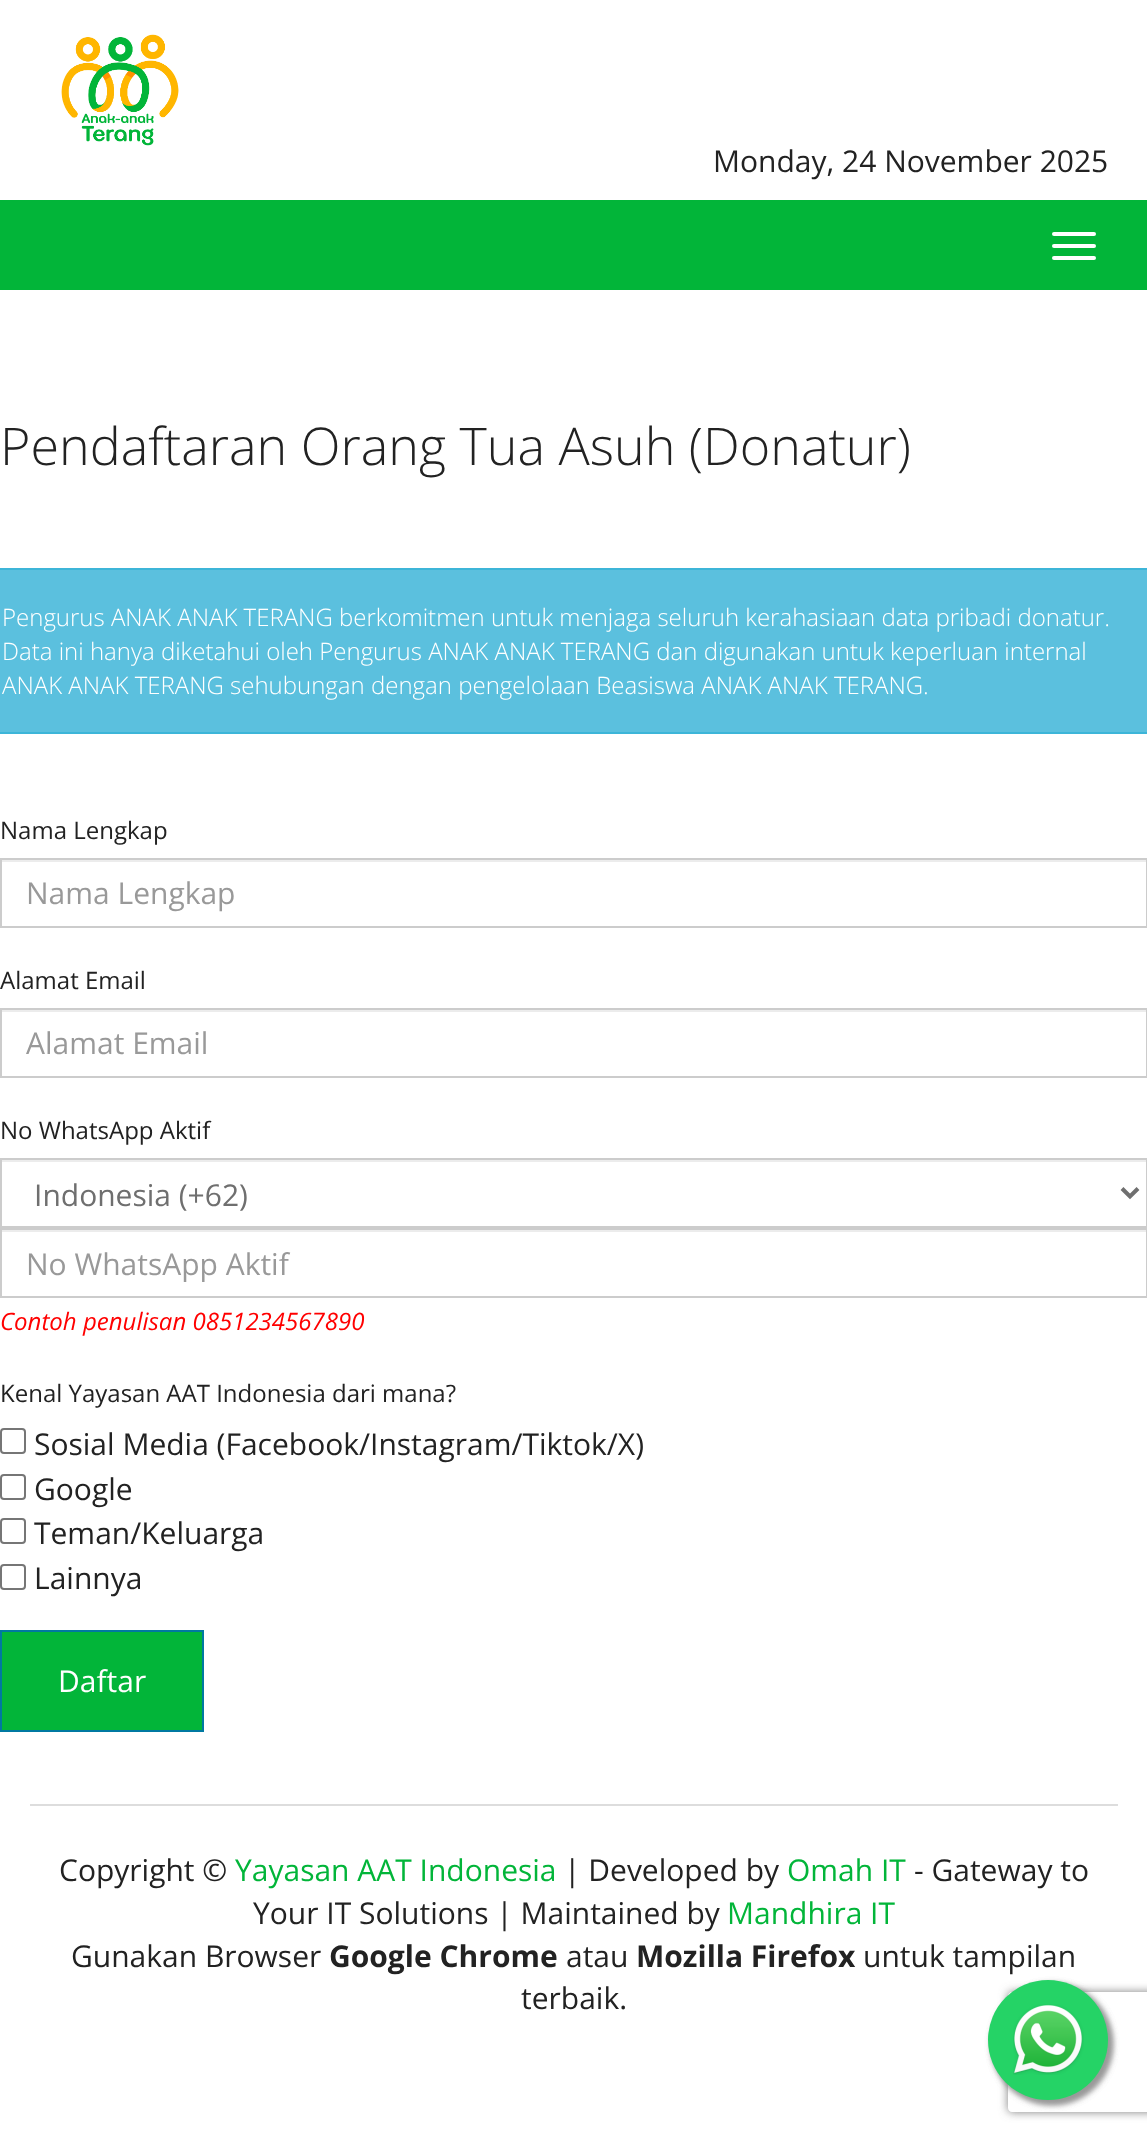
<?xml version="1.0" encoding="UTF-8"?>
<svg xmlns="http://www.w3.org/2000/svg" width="1147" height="2140">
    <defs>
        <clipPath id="clip1"><rect x="26" y="1242" width="1032" height="40"/></clipPath>
        <filter id="blur1" x="-50%" y="-200%" width="200%" height="500%"><feGaussianBlur stdDeviation="3"/></filter>
        <clipPath id="clip2"><path d="M 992 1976 H 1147 V 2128 H 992 Z M 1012 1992 H 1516 C 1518 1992 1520 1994 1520 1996 V 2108 C 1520 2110 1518 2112 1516 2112 H 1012 C 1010 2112 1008 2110 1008 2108 V 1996 C 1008 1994 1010 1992 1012 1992 Z" clip-rule="evenodd"/></clipPath>
        <filter id="blur2" x="-50%" y="-200%" width="200%" height="500%"><feGaussianBlur stdDeviation="5"/></filter>
    </defs>
    <rect width="100%" height="100%" fill="#FFFFFF"/>
    <image x="61" y="34" width="118" height="112" href="img_01.png"/>
    <text x="713" y="172" font-family="Open Sans" font-size="30" fill="#222222">Monday, 24 November 2025</text>
    <rect x="0" y="200" width="1147" height="90" fill="#02B539"/>
    <rect x="1052" y="232" width="44" height="4" rx="2" fill="#FFFFFF"/>
    <rect x="1052" y="244" width="44" height="4" rx="2" fill="#FFFFFF"/>
    <rect x="1052" y="256" width="44" height="4" rx="2" fill="#FFFFFF"/>
    <text x="0" y="465" font-family="Open Sans" font-size="52" font-weight="300" fill="#222222">Pendaftaran Orang Tua Asuh (Donatur)</text>
    <rect x="-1" y="569" width="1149" height="164" fill="#5BC0DE" stroke="#3DB5D8" stroke-width="2"/>
    <text font-family="Open Sans" font-size="24" font-weight="300" fill="#FFFFFF">
        <tspan x="2" y="626">Pengurus ANAK ANAK TERANG berkomitmen untuk menjaga seluruh kerahasiaan data pribadi donatur.</tspan>
        <tspan x="2" y="660">Data ini hanya diketahui oleh Pengurus ANAK ANAK TERANG dan digunakan untuk keperluan internal</tspan>
        <tspan x="2" y="694">ANAK ANAK TERANG sehubungan dengan pengelolaan Beasiswa ANAK ANAK TERANG.</tspan>
    </text>
    <text x="0" y="839" font-family="Open Sans" font-size="24" fill="#222222">Nama Lengkap</text>
    <rect x="2" y="860" width="1144" height="2" fill="#ECECEC"/>
    <rect x="1" y="859" width="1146" height="68" fill="none" stroke="#CCCCCC" stroke-width="2"/>
    <text x="26" y="904" font-family="Open Sans" font-size="30" fill="#999999">Nama Lengkap</text>
    <text x="0" y="989" font-family="Open Sans" font-size="24" fill="#222222">Alamat Email</text>
    <rect x="2" y="1010" width="1144" height="2" fill="#ECECEC"/>
    <rect x="1" y="1009" width="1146" height="68" fill="none" stroke="#CCCCCC" stroke-width="2"/>
    <text x="26" y="1054" font-family="Open Sans" font-size="30" fill="#999999">Alamat Email</text>
    <text x="0" y="1139" font-family="Open Sans" font-size="24" fill="#222222">No WhatsApp Aktif</text>
    <rect x="2" y="1160" width="1144" height="2" fill="#ECECEC"/>
    <rect x="1" y="1159" width="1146" height="68" fill="none" stroke="#CCCCCC" stroke-width="2"/>
    <path d="M 1122 1188.5 L 1130 1196.5 L 1138 1188.5" fill="none" stroke="#6F6F6F" stroke-width="4"/>
    <text x="34" y="1206" font-family="Open Sans" font-size="30" fill="#6F6F6F">Indonesia (+62)</text>
    <rect x="2" y="1230" width="1144" height="2" fill="#ECECEC"/>
    <rect x="1" y="1229" width="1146" height="68" fill="none" stroke="#CCCCCC" stroke-width="2"/>
    <g clip-path="url(#clip1)">
        <text x="26" y="1275" font-family="Open Sans" font-size="30" fill="#999999">No WhatsApp Aktif</text>
    </g>
    <text x="0" y="1330" font-family="Open Sans" font-size="24" font-style="italic" fill="#FF0000">Contoh penulisan 0851234567890</text>
    <text x="0" y="1402" font-family="Open Sans" font-size="24" fill="#222222">Kenal Yayasan AAT Indonesia dari mana?</text>
    <rect x="1" y="1429" width="24" height="24" rx="3" fill="none" stroke="#767676" stroke-width="2"/>
    <text x="34" y="1455" font-family="Open Sans" font-size="30" fill="#222222">Sosial Media (Facebook/Instagram/Tiktok/X)</text>
    <rect x="1" y="1475" width="24" height="24" rx="3" fill="none" stroke="#767676" stroke-width="2"/>
    <text x="34" y="1500" font-family="Open Sans" font-size="30" fill="#222222">Google</text>
    <rect x="1" y="1519" width="24" height="24" rx="3" fill="none" stroke="#767676" stroke-width="2"/>
    <text x="34" y="1544" font-family="Open Sans" font-size="30" fill="#222222">Teman/Keluarga</text>
    <rect x="1" y="1565" width="24" height="24" rx="3" fill="none" stroke="#767676" stroke-width="2"/>
    <text x="34" y="1589" font-family="Open Sans" font-size="30" fill="#222222">Lainnya</text>
    <rect x="1" y="1631" width="202" height="100" fill="#02B539" stroke="#0079A1" stroke-width="2"/>
    <text x="58" y="1692" font-family="Open Sans" font-size="30" fill="#FFFFFF">Daftar</text>
    <rect x="30" y="1804" width="1088" height="2" fill="#DDDDDD"/>
    <text x="59" y="1881" font-family="Open Sans" font-size="30" fill="#222222">Copyright ©</text>
    <text x="235" y="1881" font-family="Open Sans" font-size="30" fill="#02B539">Yayasan AAT Indonesia</text>
    <text x="564" y="1881" font-family="Open Sans" font-size="30" fill="#222222">| Developed by</text>
    <text x="787" y="1881" font-family="Open Sans" font-size="30" fill="#02B539">Omah IT</text>
    <text x="914" y="1881" font-family="Open Sans" font-size="30" fill="#222222">- Gateway to</text>
    <text x="253" y="1924" font-family="Open Sans" font-size="30" fill="#222222">Your IT Solutions | Maintained by</text>
    <text x="727" y="1924" font-family="Open Sans" font-size="30" fill="#02B539">Mandhira IT</text>
    <text x="71" y="1967" font-family="Open Sans" font-size="30" fill="#222222">Gunakan Browser</text>
    <text x="329" y="1967" font-family="Open Sans" font-size="30" font-weight="700" fill="#222222">Google Chrome</text>
    <text x="566" y="1967" font-family="Open Sans" font-size="30" fill="#222222">atau</text>
    <text x="636" y="1967" font-family="Open Sans" font-size="30" font-weight="700" fill="#222222">Mozilla Firefox</text>
    <text x="863" y="1967" font-family="Open Sans" font-size="30" fill="#222222">untuk tampilan</text>
    <text x="521" y="2009" font-family="Open Sans" font-size="30" fill="#222222">terbaik.</text>
    <rect x="992" y="1984" width="120" height="120" rx="60" fill="#999999" filter="url(#blur1)"/>
    <rect x="992" y="1984" width="120" height="120" rx="60" fill="#999999" filter="url(#blur1)"/>
    <g clip-path="url(#clip2)">
        <rect x="1008" y="1992" width="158" height="120" rx="4" fill="#808080" filter="url(#blur2)"/>
    </g>
    <circle cx="1048" cy="2040" r="60" fill="#25D366"/>
    <image x="1013" y="2004" width="71" height="71" href="img_02.png"/>
</svg>
